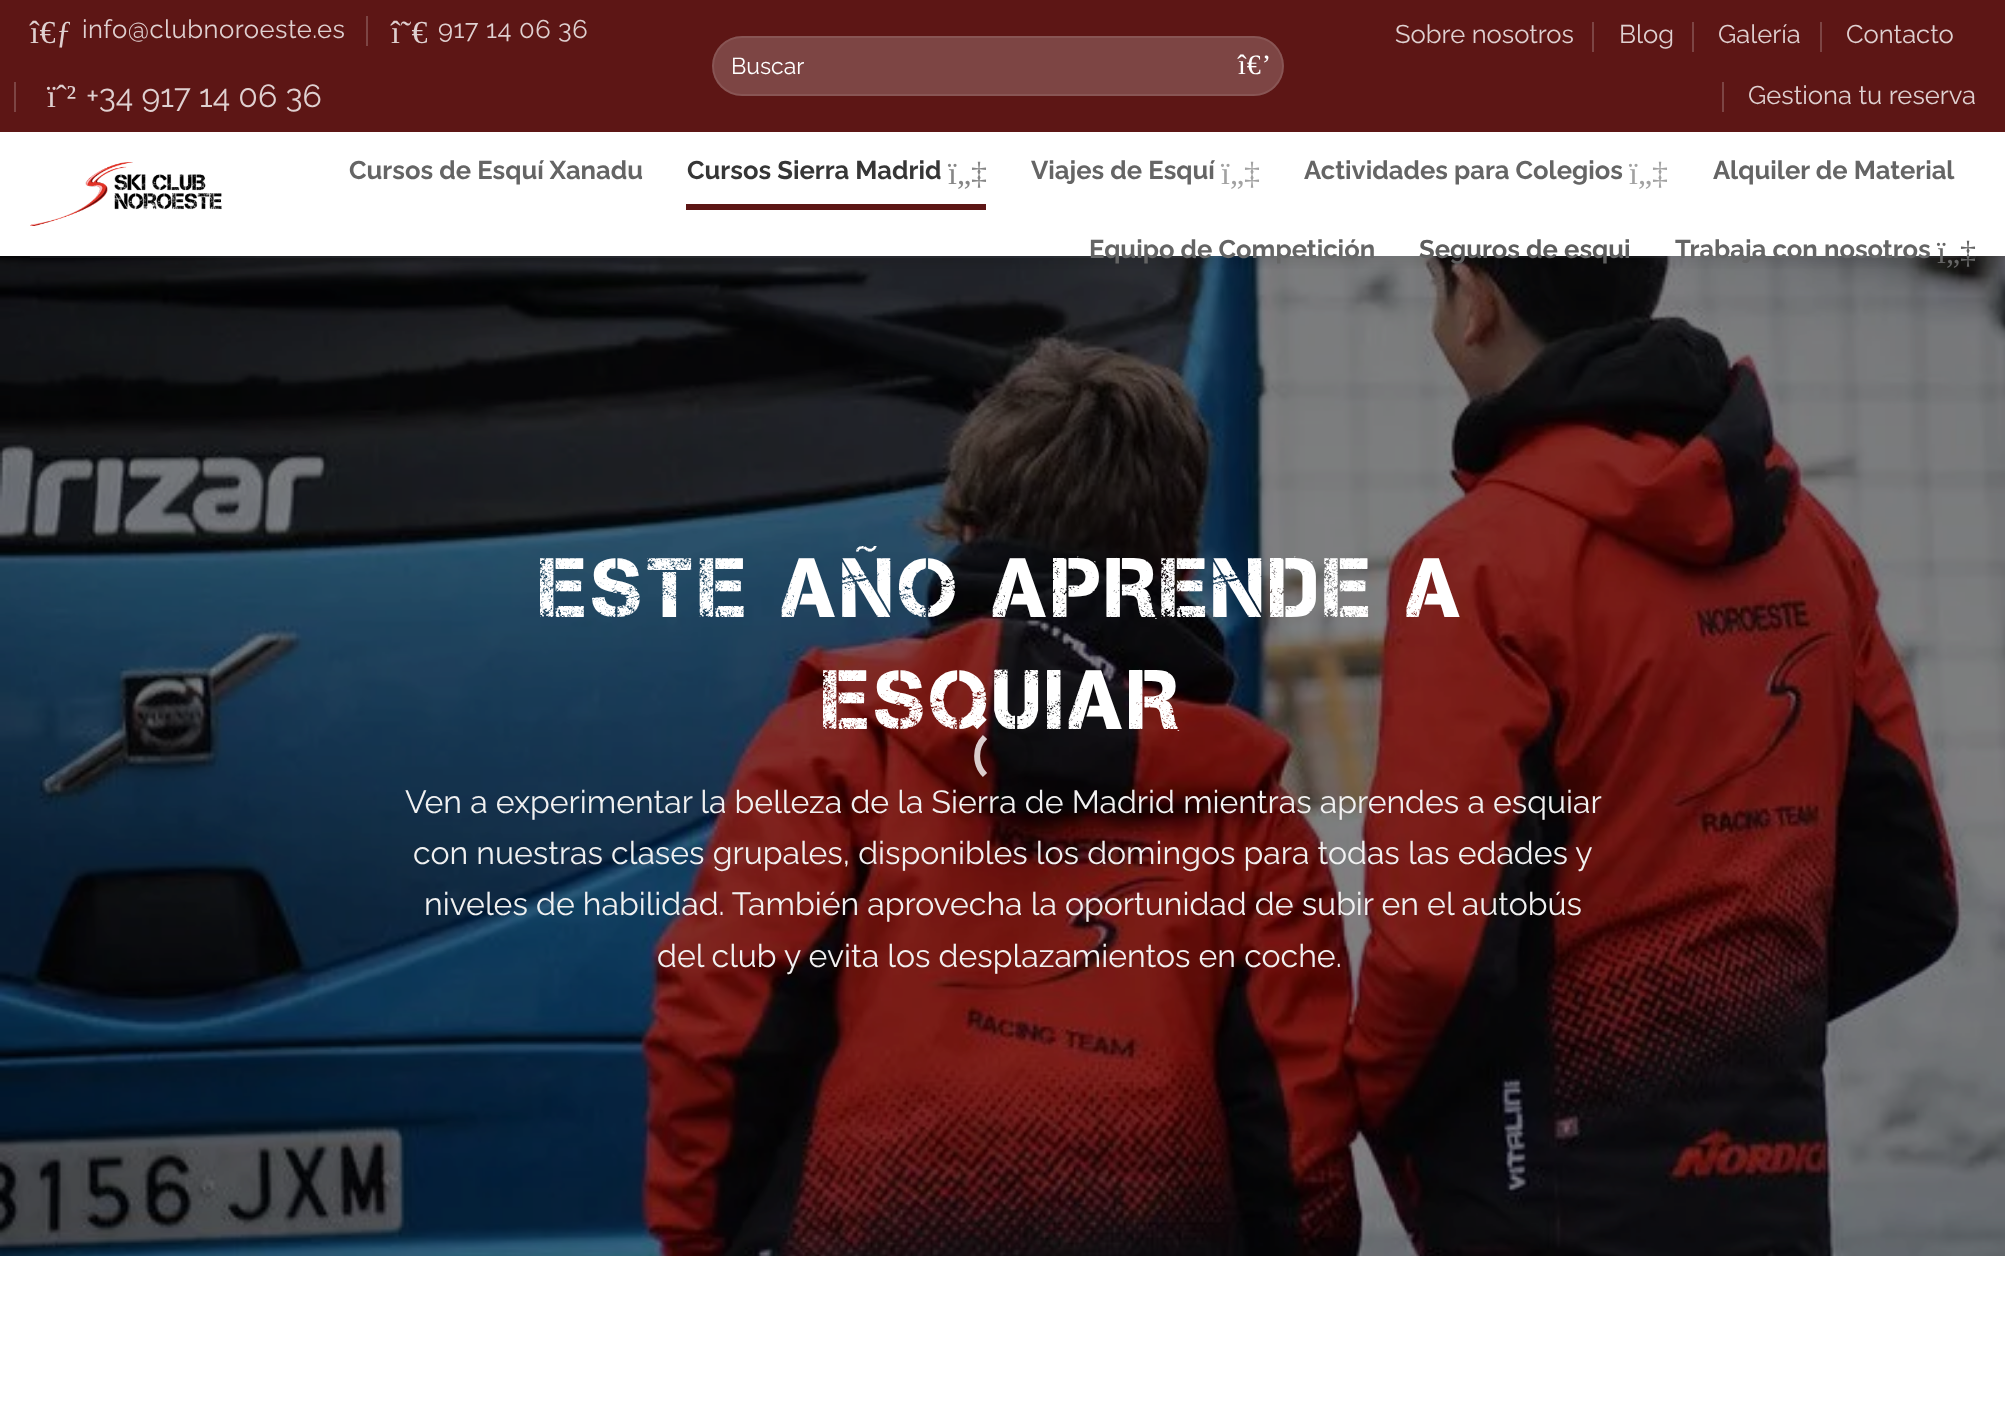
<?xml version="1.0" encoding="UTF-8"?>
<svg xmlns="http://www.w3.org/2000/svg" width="2005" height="1409">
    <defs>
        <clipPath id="clip1"><rect x="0" y="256" width="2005" height="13"/></clipPath>
        <filter id="blur1" x="-50%" y="-200%" width="200%" height="500%"><feGaussianBlur stdDeviation="10"/></filter>
    </defs>
    <rect width="100%" height="100%" fill="#FFFFFF"/>
    <image x="0" y="256" width="2005" height="1000" href="img_02.png"/>
    <g clip-path="url(#clip1)">
        <rect x="2" y="2" width="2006" height="256" fill="#000000" fill-opacity="0.15" filter="url(#blur1)"/>
    </g>
    <rect x="0" y="0" width="2005" height="132" fill="#5D1615"/>
    <text x="30" y="43" font-family="Liberation Serif" font-size="32" letter-spacing="0.5" fill="#DFD0D0">î€ƒ</text>
    <text x="82" y="38" font-family="Raleway" font-size="25.6" letter-spacing="0.5" fill="#DFD0D0">info@clubnoroeste.es</text>
    <rect x="366" y="16" width="2" height="30" fill="#7D4544"/>
    <text x="391" y="43" font-family="Liberation Serif" font-size="32" letter-spacing="0.5" fill="#DFD0D0">î˜€</text>
    <text x="438" y="38" font-family="Raleway" font-size="25.6" letter-spacing="0.5" fill="#DFD0D0">917 14 06 36</text>
    <rect x="14" y="82" width="2" height="30" fill="#7D4544"/>
    <text x="47" y="107" font-family="Liberation Serif" font-size="32" fill="#DFD0D0">ïˆ²</text>
    <text x="86" y="107" font-family="Raleway" font-size="32" fill="#DFD0D0">+34 917 14 06 36</text>
    <rect x="712" y="36" width="572" height="60" rx="30" fill="#7D4544"/>
    <rect x="713" y="37" width="570" height="58" rx="29" fill="none" stroke="#FFFFFF" stroke-opacity="0.09" stroke-width="2"/>
    <text x="731" y="74" font-family="Raleway" font-size="23" fill="#FFFFFF">Buscar</text>
    <text x="1238" y="74" font-family="Liberation Serif" font-size="28" letter-spacing="1" fill="#FFFFFF">î€’</text>
    <text x="1395" y="43" font-family="Raleway" font-size="25.6" fill="#DFD0D0">Sobre nosotros</text>
    <rect x="1592" y="22" width="2" height="30" fill="#7D4544"/>
    <text x="1619" y="43" font-family="Raleway" font-size="25.6" fill="#DFD0D0">Blog</text>
    <rect x="1692" y="22" width="2" height="30" fill="#7D4544"/>
    <text x="1718" y="43" font-family="Raleway" font-size="25.6" fill="#DFD0D0">Galería</text>
    <rect x="1820" y="22" width="2" height="30" fill="#7D4544"/>
    <text x="1846" y="43" font-family="Raleway" font-size="25.6" fill="#DFD0D0">Contacto</text>
    <rect x="1722" y="82" width="2" height="30" fill="#7D4544"/>
    <text x="1748" y="104" font-family="Raleway" font-size="25.6" fill="#DFD0D0">Gestiona tu reserva</text>
    <image x="30" y="162" width="192" height="64" href="img_01.png"/>
    <text x="349" y="179" font-family="Raleway" font-size="25.6" font-weight="700" fill="#656565">Cursos de Esquí Xanadu</text>
    <text x="687" y="179" font-family="Raleway" font-size="25.6" font-weight="700" fill="#363636">Cursos Sierra Madrid</text>
    <text x="948" y="184" font-family="Liberation Serif" font-size="32" fill="#868686">ï„‡</text>
    <rect x="686" y="204" width="300" height="6" fill="#5D1615"/>
    <text x="1031" y="179" font-family="Raleway" font-size="25.6" font-weight="700" fill="#656565">Viajes de Esquí</text>
    <text x="1221" y="184" font-family="Liberation Serif" font-size="32" fill="#A2A2A2">ï„‡</text>
    <text x="1304" y="179" font-family="Raleway" font-size="25.6" font-weight="700" fill="#656565">Actividades para Colegios</text>
    <text x="1629" y="184" font-family="Liberation Serif" font-size="32" fill="#A2A2A2">ï„‡</text>
    <text x="1713" y="179" font-family="Raleway" font-size="25.6" font-weight="700" fill="#656565">Alquiler de Material</text>
    <text x="1089" y="258" font-family="Raleway" font-size="25.6" font-weight="700" fill="#656565">Equipo de Competición</text>
    <text x="1419" y="258" font-family="Raleway" font-size="25.6" font-weight="700" fill="#5E5E5E">Seguros de esqui</text>
    <text x="1675" y="258" font-family="Raleway" font-size="25.6" font-weight="700" fill="#656565">Trabaja con nosotros</text>
    <text x="1937" y="263" font-family="Liberation Serif" font-size="32" fill="#656565">ï„‡</text>
    <rect x="30" y="256" width="1946" height="2" fill="#808B90" fill-opacity="0.1"/>
    <text x="540" y="617" font-family="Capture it" font-size="84" letter-spacing="5.6" fill="#FFFFFF">ESTE AÑO APRENDE A</text>
    <text x="823" y="729" font-family="Capture it" font-size="84" letter-spacing="5.6" fill="#FFFFFF">ESQUIAR</text>
    <text x="405" y="813" font-family="Raleway" font-size="32" fill="#F1F1F1">Ven a experimentar la belleza de la Sierra de Madrid mientras aprendes a esquiar</text>
    <text x="413" y="864" font-family="Raleway" font-size="32" fill="#F1F1F1">con nuestras clases grupales, disponibles los domingos para todas las edades y</text>
    <text x="424" y="915" font-family="Raleway" font-size="32" fill="#F1F1F1">niveles de habilidad. También aprovecha la oportunidad de subir en el autobús</text>
    <text x="657" y="967" font-family="Raleway" font-size="32" fill="#F1F1F1">del club y evita los desplazamientos en coche.</text>
    <path d="M 985 737 C 991 730.5 1000.5 728 1009.5 729.5 C 1041 736 1036 783 1004 783 C 997 783 990 780 985 775" fill="none" stroke="#000000" stroke-opacity="0.08" stroke-width="6"/>
    <path d="M 985 775 C 974.5 764.5 974.5 747.5 985 737" fill="none" stroke="#FFFFFF" stroke-opacity="0.8" stroke-width="6"/>
</svg>
